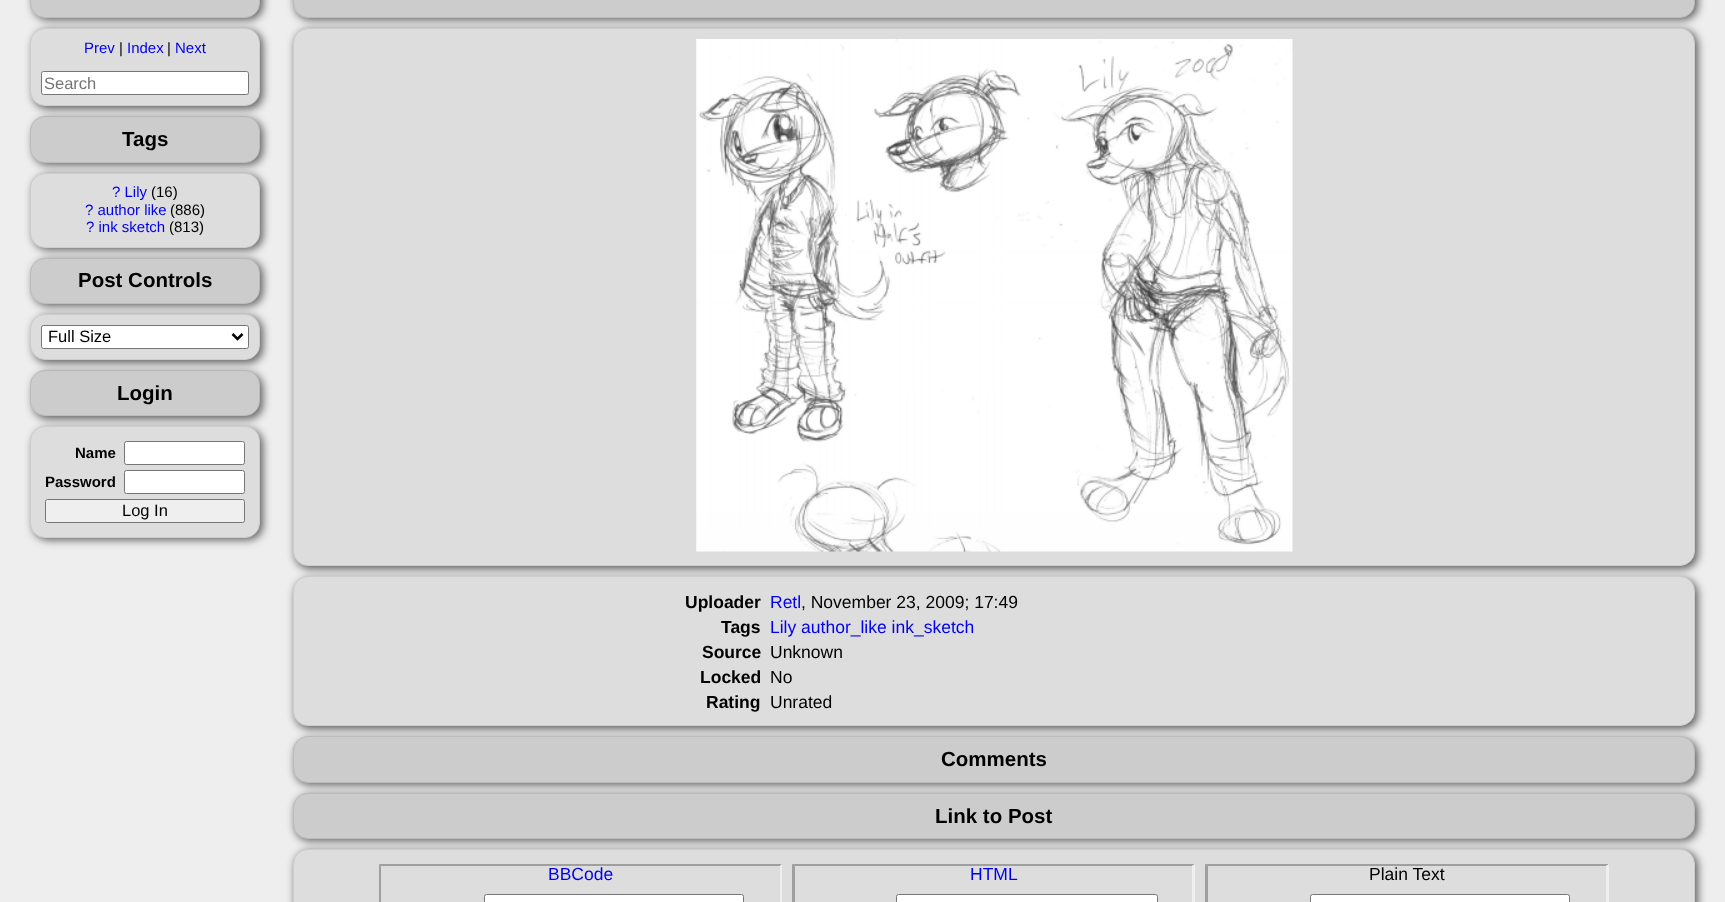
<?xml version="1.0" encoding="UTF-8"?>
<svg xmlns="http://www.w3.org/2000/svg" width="1725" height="902">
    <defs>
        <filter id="blur1" x="-50%" y="-200%" width="200%" height="500%"><feGaussianBlur stdDeviation="4"/></filter>
    </defs>
    <rect width="100%" height="100%" fill="#EEEEEE"/>
    <rect x="33" y="-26" width="230" height="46" rx="15" fill="#000000" fill-opacity="0.6" filter="url(#blur1)"/>
    <rect x="30.5" y="-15.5" width="229" height="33" rx="14.5" fill="#CCCCCC" stroke="#BBBBBB"/>
    <rect x="33" y="119" width="230" height="46" rx="15" fill="#000000" fill-opacity="0.6" filter="url(#blur1)"/>
    <rect x="30.5" y="116.5" width="229" height="46" rx="14.5" fill="#CCCCCC" stroke="#BBBBBB"/>
    <rect x="33" y="30" width="230" height="79" rx="15" fill="#000000" fill-opacity="0.6" filter="url(#blur1)"/>
    <rect x="30.5" y="28.5" width="229" height="77" rx="14.5" fill="#DDDDDD" stroke="#CCCCCC"/>
    <text x="84" y="53" font-family="Liberation Sans" font-size="15" fill="#0000EE">Prev</text>
    <text x="119" y="53" font-family="Liberation Sans" font-size="15" fill="#000000">|</text>
    <text x="127" y="53" font-family="Liberation Sans" font-size="15" fill="#0000EE">Index</text>
    <text x="167" y="53" font-family="Liberation Sans" font-size="15" fill="#000000">|</text>
    <text x="175" y="53" font-family="Liberation Sans" font-size="15" fill="#0000EE">Next</text>
    <rect x="41.5" y="71.5" width="207" height="23" rx="2" fill="#FFFFFF" stroke="#767676"/>
    <text x="44" y="89" font-family="Liberation Sans" font-size="16.5" fill="#757575">Search</text>
    <text x="122" y="146" font-family="Liberation Sans" font-size="20.5" font-weight="700" fill="#000000">Tags</text>
    <rect x="33" y="260" width="230" height="46" rx="15" fill="#000000" fill-opacity="0.6" filter="url(#blur1)"/>
    <rect x="30.5" y="258.5" width="229" height="45" rx="14.5" fill="#CCCCCC" stroke="#BBBBBB"/>
    <rect x="33" y="175" width="230" height="75" rx="15" fill="#000000" fill-opacity="0.6" filter="url(#blur1)"/>
    <rect x="30.5" y="173.5" width="229" height="74" rx="14.5" fill="#DDDDDD" stroke="#CCCCCC"/>
    <text x="112" y="197" font-family="Liberation Sans" font-size="15" fill="#0000EE">? Lily</text>
    <text x="151" y="197" font-family="Liberation Sans" font-size="15" fill="#000000">(16)</text>
    <text x="85" y="215" font-family="Liberation Sans" font-size="15" fill="#0000EE">? author like</text>
    <text x="170" y="215" font-family="Liberation Sans" font-size="15" fill="#000000">(886)</text>
    <text x="86" y="232" font-family="Liberation Sans" font-size="15" fill="#0000EE">? ink sketch</text>
    <text x="169" y="232" font-family="Liberation Sans" font-size="15" fill="#000000">(813)</text>
    <text x="78" y="287" font-family="Liberation Sans" font-size="20.5" font-weight="700" fill="#000000">Post Controls</text>
    <rect x="33" y="373" width="230" height="46" rx="15" fill="#000000" fill-opacity="0.6" filter="url(#blur1)"/>
    <rect x="30.5" y="370.5" width="229" height="45" rx="14.5" fill="#CCCCCC" stroke="#BBBBBB"/>
    <rect x="33" y="316" width="230" height="47" rx="15" fill="#000000" fill-opacity="0.6" filter="url(#blur1)"/>
    <rect x="30.5" y="314.5" width="229" height="45" rx="14.5" fill="#DDDDDD" stroke="#CCCCCC"/>
    <rect x="41.5" y="325.5" width="207" height="23" rx="2" fill="#FFFFFF" stroke="#767676"/>
    <path d="M 232.5 334 L 237.5 339 L 242.5 334" fill="none" stroke="#000000" stroke-width="2.5"/>
    <text x="48" y="342" font-family="Liberation Sans" font-size="16.5" fill="#000000">Full Size</text>
    <text x="117" y="400" font-family="Liberation Sans" font-size="20.5" font-weight="700" fill="#000000">Login</text>
    <rect x="33" y="429" width="230" height="111" rx="15" fill="#000000" fill-opacity="0.6" filter="url(#blur1)"/>
    <rect x="30.5" y="426.5" width="229" height="111" rx="14.5" fill="#DDDDDD" stroke="#CCCCCC"/>
    <text x="75" y="458" font-family="Liberation Sans" font-size="15" font-weight="700" fill="#000000">Name</text>
    <rect x="124.5" y="441.5" width="120" height="23" rx="2" fill="#FFFFFF" stroke="#767676"/>
    <text x="45" y="487" font-family="Liberation Sans" font-size="15" font-weight="700" fill="#000000">Password</text>
    <rect x="124.5" y="470.5" width="120" height="23" rx="2" fill="#FFFFFF" stroke="#767676"/>
    <rect x="45.5" y="499.5" width="199" height="23" rx="2" fill="#EFEFEF" stroke="#767676"/>
    <text x="122" y="516" font-family="Liberation Sans" font-size="16.5" fill="#000000">Log In</text>
    <rect x="295" y="-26" width="1403" height="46" rx="15" fill="#000000" fill-opacity="0.6" filter="url(#blur1)"/>
    <rect x="293.5" y="-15.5" width="1401" height="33" rx="14.5" fill="#CCCCCC" stroke="#BBBBBB"/>
    <rect x="295" y="30" width="1403" height="539" rx="15" fill="#000000" fill-opacity="0.6" filter="url(#blur1)"/>
    <rect x="293.5" y="28.5" width="1401" height="537" rx="14.5" fill="#DDDDDD" stroke="#CCCCCC"/>
    <image x="696" y="39" width="597" height="513" href="img_01.png"/>
    <rect x="295" y="579" width="1403" height="150" rx="15" fill="#000000" fill-opacity="0.6" filter="url(#blur1)"/>
    <rect x="293.5" y="576.5" width="1401" height="149" rx="14.5" fill="#DDDDDD" stroke="#CCCCCC"/>
    <text x="685" y="608" font-family="Liberation Sans" font-size="17.5" font-weight="700" fill="#000000">Uploader</text>
    <text x="770" y="608" font-family="Liberation Sans" font-size="17.5" fill="#0000EE">Retl</text>
    <text x="801" y="608" font-family="Liberation Sans" font-size="17.5" fill="#000000">, November 23, 2009; 17:49</text>
    <text x="721" y="633" font-family="Liberation Sans" font-size="17.5" font-weight="700" fill="#000000">Tags</text>
    <text x="770" y="633" font-family="Liberation Sans" font-size="17.5" fill="#0000EE">Lily author_like ink_sketch</text>
    <text x="702" y="658" font-family="Liberation Sans" font-size="17.5" font-weight="700" fill="#000000">Source</text>
    <text x="770" y="658" font-family="Liberation Sans" font-size="17.5" fill="#000000">Unknown</text>
    <text x="700" y="683" font-family="Liberation Sans" font-size="17.5" font-weight="700" fill="#000000">Locked</text>
    <text x="770" y="683" font-family="Liberation Sans" font-size="17.5" fill="#000000">No</text>
    <text x="706" y="708" font-family="Liberation Sans" font-size="17.5" font-weight="700" fill="#000000">Rating</text>
    <text x="770" y="708" font-family="Liberation Sans" font-size="17.5" fill="#000000">Unrated</text>
    <rect x="295" y="739" width="1403" height="46" rx="15" fill="#000000" fill-opacity="0.6" filter="url(#blur1)"/>
    <rect x="293.5" y="736.5" width="1401" height="46" rx="14.5" fill="#CCCCCC" stroke="#BBBBBB"/>
    <text x="941" y="766" font-family="Liberation Sans" font-size="20.5" font-weight="700" fill="#000000">Comments</text>
    <rect x="295" y="795" width="1403" height="46" rx="15" fill="#000000" fill-opacity="0.6" filter="url(#blur1)"/>
    <rect x="293.5" y="793.5" width="1401" height="45" rx="14.5" fill="#CCCCCC" stroke="#BBBBBB"/>
    <text x="935" y="823" font-family="Liberation Sans" font-size="20.5" font-weight="700" fill="#000000">Link to Post</text>
    <rect x="295" y="851" width="1403" height="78" rx="15" fill="#000000" fill-opacity="0.6" filter="url(#blur1)"/>
    <rect x="293.5" y="849.5" width="1401" height="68" rx="14.5" fill="#DDDDDD" stroke="#CCCCCC"/>
    <path d="M 379 864 H 782 L 780 866 H 381 Z" fill="#9F9F9F"/>
    <path d="M 782 864 V 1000 L 780 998 V 866 Z" fill="#EFEFEF"/>
    <path d="M 379 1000 V 864 L 381 866 V 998 Z" fill="#9F9F9F"/>
    <text x="548" y="880" font-family="Liberation Sans" font-size="17.5" fill="#0000EE">BBCode</text>
    <rect x="484.5" y="894.5" width="259" height="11" rx="2" fill="#FFFFFF" stroke="#767676"/>
    <path d="M 792 864 H 1195 L 1192 866 H 795 Z" fill="#9F9F9F"/>
    <path d="M 1195 864 V 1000 L 1192 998 V 866 Z" fill="#EFEFEF"/>
    <path d="M 792 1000 V 864 L 795 866 V 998 Z" fill="#9F9F9F"/>
    <text x="970" y="880" font-family="Liberation Sans" font-size="17.5" fill="#0000EE">HTML</text>
    <rect x="896.5" y="894.5" width="261" height="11" rx="2" fill="#FFFFFF" stroke="#767676"/>
    <path d="M 1205 864 H 1609 L 1606 866 H 1208 Z" fill="#9F9F9F"/>
    <path d="M 1609 864 V 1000 L 1606 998 V 866 Z" fill="#EFEFEF"/>
    <path d="M 1205 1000 V 864 L 1208 866 V 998 Z" fill="#9F9F9F"/>
    <text x="1369" y="880" font-family="Liberation Sans" font-size="17.5" fill="#000000">Plain Text</text>
    <rect x="1310.5" y="894.5" width="259" height="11" rx="2" fill="#FFFFFF" stroke="#767676"/>
</svg>
